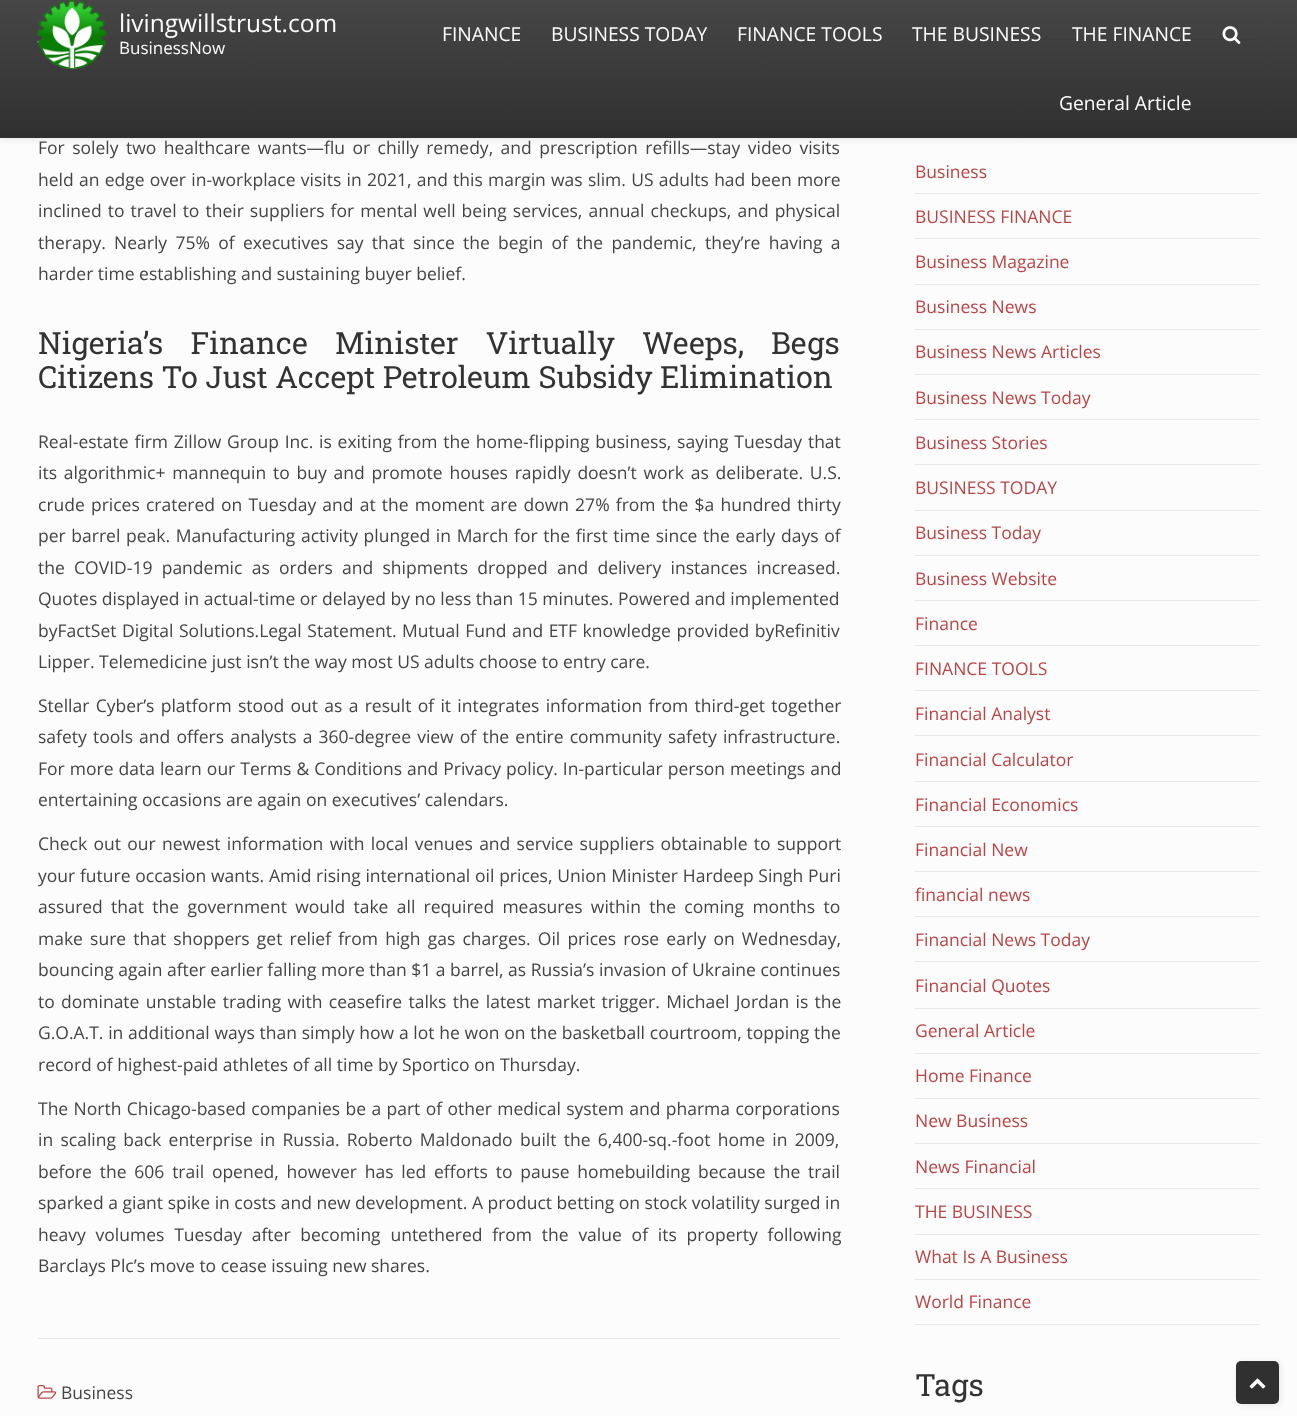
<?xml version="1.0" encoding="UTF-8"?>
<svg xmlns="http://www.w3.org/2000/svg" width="1297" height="1416">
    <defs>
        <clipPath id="clip1"><path d="M 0 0 H 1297 V 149 H 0 Z M 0 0 H 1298 V 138 H 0 Z" clip-rule="evenodd"/></clipPath>
        <filter id="blur1" x="-50%" y="-200%" width="200%" height="500%"><feGaussianBlur stdDeviation="3"/></filter>
        <linearGradient id="g1" gradientUnits="userSpaceOnUse" x1="649" y1="0" x2="649" y2="138"><stop offset="0" stop-color="#191919" stop-opacity="0.8"/><stop offset="1" stop-color="#191919" stop-opacity="0.9"/></linearGradient>
        <clipPath id="clip2"><path d="M 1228 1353 H 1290 V 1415 H 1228 Z M 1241 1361 H 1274 C 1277 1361 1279 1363 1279 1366 V 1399 C 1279 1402 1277 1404 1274 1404 H 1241 C 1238 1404 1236 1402 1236 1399 V 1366 C 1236 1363 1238 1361 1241 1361 Z" clip-rule="evenodd"/></clipPath>
    </defs>
    <rect width="100%" height="100%" fill="#FCFCFC"/>
    <rect x="915" y="39" width="345" height="1" fill="#E8E8E8"/>
    <g clip-path="url(#clip1)">
        <rect x="1" y="1" width="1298" height="138" fill="#191919" fill-opacity="0.1" filter="url(#blur1)"/>
    </g>
    <rect x="0" y="0" width="1297" height="138" fill="url(#g1)"/>
    <image x="37" y="0" width="70" height="69" href="img_01.png"/>
    <text x="119" y="32" font-family="Open Sans" font-size="24.5" fill="#FCFCFC">livingwillstrust.com</text>
    <text x="119" y="54" font-family="Open Sans" font-size="17" fill="#FCFCFC">BusinessNow</text>
    <text x="442" y="41" font-family="Open Sans" font-size="19.25" fill="#FCFCFC">FINANCE</text>
    <text x="551" y="41" font-family="Open Sans" font-size="19.25" fill="#FCFCFC">BUSINESS TODAY</text>
    <text x="737" y="41" font-family="Open Sans" font-size="19.25" fill="#FCFCFC">FINANCE TOOLS</text>
    <text x="912" y="41" font-family="Open Sans" font-size="19.25" fill="#FCFCFC">THE BUSINESS</text>
    <text x="1072" y="41" font-family="Open Sans" font-size="19.25" fill="#FCFCFC">THE FINANCE</text>
    <text x="1059" y="110" font-family="Open Sans" font-size="19.25" fill="#FCFCFC">General Article</text>
    <image x="1222" y="26" width="19" height="18" href="img_02.png"/>
    <text font-family="Open Sans" font-size="17.5" fill="#444444">
        <tspan x="38" y="154" word-spacing="2.9">For solely two healthcare wants—flu or chilly remedy, and prescription refills—stay video visits</tspan>
        <tspan x="38" y="186" word-spacing="0.7">held an edge over in-workplace visits in 2021, and this margin was slim. US adults had been more</tspan>
        <tspan x="38" y="217" word-spacing="1.5">inclined to travel to their suppliers for mental well being services, annual checkups, and physical</tspan>
        <tspan x="38" y="249" word-spacing="3.75">therapy. Nearly 75% of executives say that since the begin of the pandemic, they’re having a</tspan>
        <tspan x="38" y="280">harder time establishing and sustaining buyer belief.</tspan>
    </text>
    <text font-family="Roboto Slab" font-size="30.6" fill="#333333">
        <tspan x="38" y="354" word-spacing="19.5">Nigeria’s Finance Minister Virtually Weeps, Begs</tspan>
        <tspan x="38" y="388">Citizens To Just Accept Petroleum Subsidy Elimination</tspan>
    </text>
    <text font-family="Open Sans" font-size="17.5" fill="#444444">
        <tspan x="38" y="448" word-spacing="1.25">Real-estate firm Zillow Group Inc. is exiting from the home-flipping business, saying Tuesday that</tspan>
        <tspan x="38" y="479" word-spacing="2.25">its algorithmic+ mannequin to buy and promote houses rapidly doesn’t work as deliberate. U.S.</tspan>
        <tspan x="38" y="511" word-spacing="1.6">crude prices cratered on Tuesday and at the moment are down 27% from the $a hundred thirty</tspan>
        <tspan x="38" y="542" word-spacing="1.1">per barrel peak. Manufacturing activity plunged in March for the first time since the early days of</tspan>
        <tspan x="38" y="574" word-spacing="4.75">the COVID-19 pandemic as orders and shipments dropped and delivery instances increased.</tspan>
        <tspan x="38" y="605">Quotes displayed in actual-time or delayed by no less than 15 minutes. Powered and implemented</tspan>
        <tspan x="38" y="637" word-spacing="1">byFactSet Digital Solutions.Legal Statement. Mutual Fund and ETF knowledge provided byRefinitiv</tspan>
        <tspan x="38" y="668">Lipper. Telemedicine just isn’t the way most US adults choose to entry care.</tspan>
    </text>
    <text font-family="Open Sans" font-size="17.5" fill="#444444">
        <tspan x="38" y="712" word-spacing="1.75">Stellar Cyber’s platform stood out as a result of it integrates information from third-get together</tspan>
        <tspan x="38" y="743" word-spacing="1.6">safety tools and offers analysts a 360-degree view of the entire community safety infrastructure.</tspan>
        <tspan x="38" y="775" word-spacing="0.5">For more data learn our Terms &amp; Conditions and Privacy policy. In-particular person meetings and</tspan>
        <tspan x="38" y="806">entertaining occasions are again on executives’ calendars.</tspan>
    </text>
    <text font-family="Open Sans" font-size="17.5" fill="#444444">
        <tspan x="38" y="850" word-spacing="1.75">Check out our newest information with local venues and service suppliers obtainable to support</tspan>
        <tspan x="38" y="882" word-spacing="0.2">your future occasion wants. Amid rising international oil prices, Union Minister Hardeep Singh Puri</tspan>
        <tspan x="38" y="913" word-spacing="3.75">assured that the government would take all required measures within the coming months to</tspan>
        <tspan x="38" y="945" word-spacing="2.6">make sure that shoppers get relief from high gas charges. Oil prices rose early on Wednesday,</tspan>
        <tspan x="38" y="976">bouncing again after earlier falling more than $1 a barrel, as Russia’s invasion of Ukraine continues</tspan>
        <tspan x="38" y="1008" word-spacing="1.75">to dominate unstable trading with ceasefire talks the latest market trigger. Michael Jordan is the</tspan>
        <tspan x="38" y="1039" word-spacing="0.2">G.O.A.T. in additional ways than simply how a lot he won on the basketball courtroom, topping the</tspan>
        <tspan x="38" y="1071">record of highest-paid athletes of all time by Sportico on Thursday.</tspan>
    </text>
    <text font-family="Open Sans" font-size="17.5" fill="#444444">
        <tspan x="38" y="1115" word-spacing="0.8">The North Chicago-based companies be a part of other medical system and pharma corporations</tspan>
        <tspan x="38" y="1146" word-spacing="2.75">in scaling back enterprise in Russia. Roberto Maldonado built the 6,400-sq.-foot home in 2009,</tspan>
        <tspan x="38" y="1178" word-spacing="3.25">before the 606 trail opened, however has led efforts to pause homebuilding because the trail</tspan>
        <tspan x="38" y="1209">sparked a giant spike in costs and new development. A product betting on stock volatility surged in</tspan>
        <tspan x="38" y="1241" word-spacing="5.25">heavy volumes Tuesday after becoming untethered from the value of its property following</tspan>
        <tspan x="38" y="1272">Barclays Plc’s move to cease issuing new shares.</tspan>
    </text>
    <rect x="38" y="1338" width="802" height="1" fill="#E8E8E8"/>
    <image x="37" y="1385" width="20" height="14" href="img_03.png"/>
    <text x="61" y="1399" font-family="Open Sans" font-size="17.5" fill="#444444">Business</text>
    <rect x="915" y="193" width="345" height="1" fill="#E8E8E8"/>
    <text x="915" y="178" font-family="Open Sans" font-size="17.5" fill="#BA4444">Business</text>
    <rect x="915" y="238" width="345" height="1" fill="#E8E8E8"/>
    <text x="915" y="223" font-family="Open Sans" font-size="17.5" fill="#BA4444">BUSINESS FINANCE</text>
    <rect x="915" y="284" width="345" height="1" fill="#E8E8E8"/>
    <text x="915" y="268" font-family="Open Sans" font-size="17.5" fill="#BA4444">Business Magazine</text>
    <rect x="915" y="329" width="345" height="1" fill="#E8E8E8"/>
    <text x="915" y="313" font-family="Open Sans" font-size="17.5" fill="#BA4444">Business News</text>
    <rect x="915" y="374" width="345" height="1" fill="#E8E8E8"/>
    <text x="915" y="358" font-family="Open Sans" font-size="17.5" fill="#BA4444">Business News Articles</text>
    <rect x="915" y="419" width="345" height="1" fill="#E8E8E8"/>
    <text x="915" y="404" font-family="Open Sans" font-size="17.5" fill="#BA4444">Business News Today</text>
    <rect x="915" y="464" width="345" height="1" fill="#E8E8E8"/>
    <text x="915" y="449" font-family="Open Sans" font-size="17.5" fill="#BA4444">Business Stories</text>
    <rect x="915" y="510" width="345" height="1" fill="#E8E8E8"/>
    <text x="915" y="494" font-family="Open Sans" font-size="17.5" fill="#BA4444">BUSINESS TODAY</text>
    <rect x="915" y="555" width="345" height="1" fill="#E8E8E8"/>
    <text x="915" y="539" font-family="Open Sans" font-size="17.5" fill="#BA4444">Business Today</text>
    <rect x="915" y="600" width="345" height="1" fill="#E8E8E8"/>
    <text x="915" y="585" font-family="Open Sans" font-size="17.5" fill="#BA4444">Business Website</text>
    <rect x="915" y="645" width="345" height="1" fill="#E8E8E8"/>
    <text x="915" y="630" font-family="Open Sans" font-size="17.5" fill="#BA4444">Finance</text>
    <rect x="915" y="690" width="345" height="1" fill="#E8E8E8"/>
    <text x="915" y="675" font-family="Open Sans" font-size="17.5" fill="#BA4444">FINANCE TOOLS</text>
    <rect x="915" y="735" width="345" height="1" fill="#E8E8E8"/>
    <text x="915" y="720" font-family="Open Sans" font-size="17.5" fill="#BA4444">Financial Analyst</text>
    <rect x="915" y="781" width="345" height="1" fill="#E8E8E8"/>
    <text x="915" y="766" font-family="Open Sans" font-size="17.5" fill="#BA4444">Financial Calculator</text>
    <rect x="915" y="826" width="345" height="1" fill="#E8E8E8"/>
    <text x="915" y="811" font-family="Open Sans" font-size="17.5" fill="#BA4444">Financial Economics</text>
    <rect x="915" y="871" width="345" height="1" fill="#E8E8E8"/>
    <text x="915" y="856" font-family="Open Sans" font-size="17.5" fill="#BA4444">Financial New</text>
    <rect x="915" y="916" width="345" height="1" fill="#E8E8E8"/>
    <text x="915" y="901" font-family="Open Sans" font-size="17.5" fill="#BA4444">financial news</text>
    <rect x="915" y="961" width="345" height="1" fill="#E8E8E8"/>
    <text x="915" y="946" font-family="Open Sans" font-size="17.5" fill="#BA4444">Financial News Today</text>
    <rect x="915" y="1008" width="345" height="1" fill="#E8E8E8"/>
    <text x="915" y="992" font-family="Open Sans" font-size="17.5" fill="#BA4444">Financial Quotes</text>
    <rect x="915" y="1053" width="345" height="1" fill="#E8E8E8"/>
    <text x="915" y="1037" font-family="Open Sans" font-size="17.5" fill="#BA4444">General Article</text>
    <rect x="915" y="1098" width="345" height="1" fill="#E8E8E8"/>
    <text x="915" y="1082" font-family="Open Sans" font-size="17.5" fill="#BA4444">Home Finance</text>
    <rect x="915" y="1143" width="345" height="1" fill="#E8E8E8"/>
    <text x="915" y="1127" font-family="Open Sans" font-size="17.5" fill="#BA4444">New Business</text>
    <rect x="915" y="1188" width="345" height="1" fill="#E8E8E8"/>
    <text x="915" y="1173" font-family="Open Sans" font-size="17.5" fill="#BA4444">News Financial</text>
    <rect x="915" y="1234" width="345" height="1" fill="#E8E8E8"/>
    <text x="915" y="1218" font-family="Open Sans" font-size="17.5" fill="#BA4444">THE BUSINESS</text>
    <rect x="915" y="1279" width="345" height="1" fill="#E8E8E8"/>
    <text x="915" y="1263" font-family="Open Sans" font-size="17.5" fill="#BA4444">What Is A Business</text>
    <rect x="915" y="1324" width="345" height="1" fill="#E8E8E8"/>
    <text x="915" y="1308" font-family="Open Sans" font-size="17.5" fill="#BA4444">World Finance</text>
    <text x="915" y="1396" font-family="Roboto Slab" font-size="30.6" fill="#333333">Tags</text>
    <g clip-path="url(#clip2)">
        <rect x="1238" y="1363" width="42" height="42" rx="5" fill="#191919" fill-opacity="0.1" filter="url(#blur1)"/>
    </g>
    <rect x="1236" y="1361" width="43" height="43" rx="5" fill="#191919" fill-opacity="0.9"/>
    <image x="1249" y="1378" width="17" height="11" href="img_04.png"/>
</svg>
